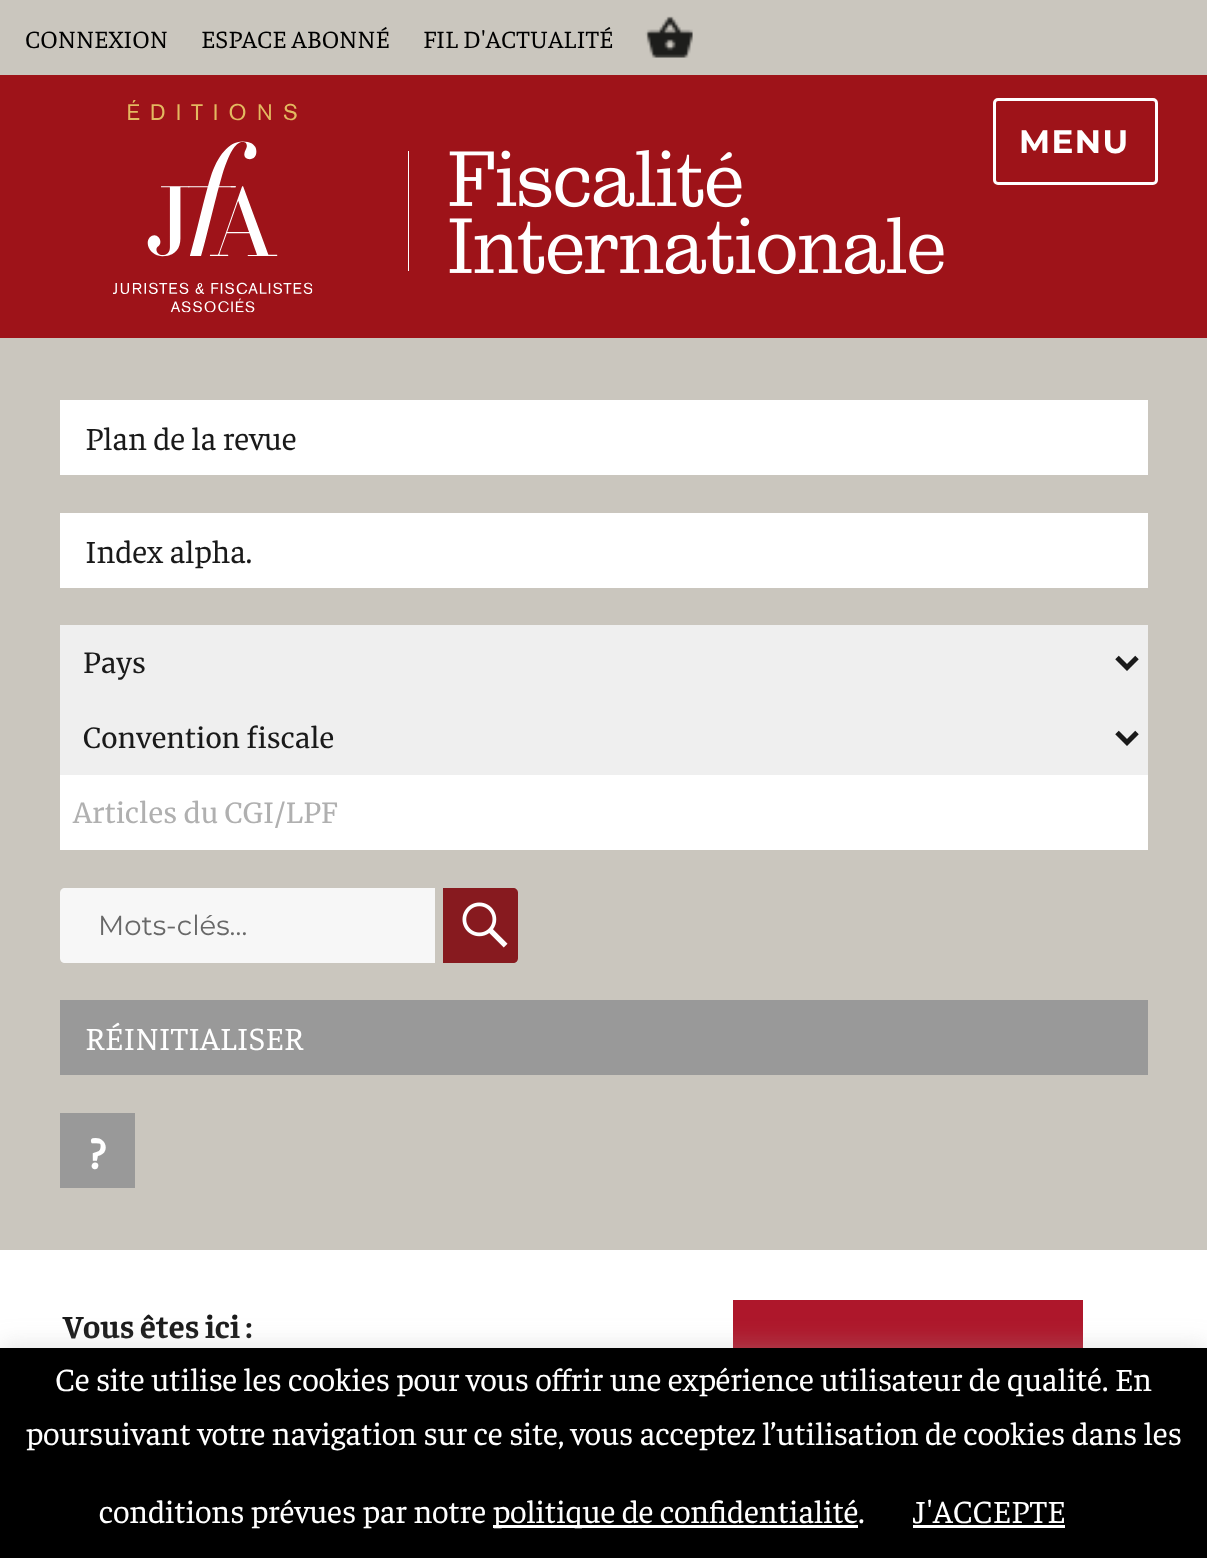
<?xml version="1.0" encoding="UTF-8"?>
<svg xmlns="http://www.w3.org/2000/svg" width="1207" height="1558">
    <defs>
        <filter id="blur1" x="-50%" y="-200%" width="200%" height="500%"><feGaussianBlur stdDeviation="12.5"/></filter>
    </defs>
    <rect width="100%" height="100%" fill="#FFFFFF"/>
    <rect x="0" y="75" width="1207" height="263" fill="#9E1319"/>
    <rect x="0" y="0" width="1207" height="75" fill="#CAC6BE"/>
    <text x="25" y="48" font-family="Faustina" font-size="25" fill="#000000">CONNEXION</text>
    <text x="201" y="48" font-family="Faustina" font-size="25" fill="#000000">ESPACE ABONNÉ</text>
    <text x="423" y="48" font-family="Faustina" font-size="25" fill="#000000">FIL D'ACTUALITÉ</text>
    <image x="645" y="16" width="48" height="42" href="img_01.png"/>
    <image x="113" y="100" width="200" height="213" href="img_02.png"/>
    <image x="408" y="150" width="536" height="125" href="img_03.png"/>
    <rect x="994.5" y="99.5" width="162" height="84" rx="3.5" fill="none" stroke="#FFFFFF" stroke-width="3"/>
    <text x="1019" y="153" font-family="Montserrat" font-size="32.5" font-weight="100" letter-spacing="1.5" fill="#FFFFFF">MENU</text>
    <rect x="0" y="338" width="1207" height="912" fill="#CAC6BE"/>
    <rect x="60" y="400" width="1088" height="75" fill="#FFFFFF"/>
    <text x="85" y="450" font-family="Faustina" font-size="32.5" fill="#1A1A1A">Plan de la revue</text>
    <rect x="60" y="513" width="1088" height="75" fill="#FFFFFF"/>
    <text x="85" y="563" font-family="Faustina" font-size="32.5" fill="#1A1A1A">Index alpha.</text>
    <rect x="60" y="625" width="1088" height="150" fill="#EFEFEF"/>
    <path d="M 1117 657.5 L 1127 667.5 L 1137 657.5" fill="none" stroke="#1A1A1A" stroke-width="5"/>
    <text x="83" y="673" font-family="Merriweather" font-size="27.5" fill="#1A1A1A">Pays</text>
    <path d="M 1117 732.5 L 1127 742.5 L 1137 732.5" fill="none" stroke="#1A1A1A" stroke-width="5"/>
    <text x="83" y="748" font-family="Merriweather" font-size="27.5" fill="#1A1A1A">Convention fiscale</text>
    <rect x="60" y="775" width="1088" height="75" fill="#FFFFFF"/>
    <text x="73" y="823" font-family="Merriweather" font-size="27.5" fill="#B0B0B0">Articles du CGI/LPF</text>
    <path d="M 65 888 H 435 V 963 H 65 C 62 963 60 961 60 958 V 893 C 60 890 62 888 65 888 Z" fill="#F7F7F7"/>
    <text x="98" y="935" font-family="'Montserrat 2'" font-size="27.5" font-weight="100" fill="#686868">Mots-clés…</text>
    <path d="M 443 888 H 513 C 516 888 518 890 518 893 V 958 C 518 961 516 963 513 963 H 443 Z" fill="#871A1F"/>
    <image x="462" y="902" width="46" height="46" href="img_04.png"/>
    <rect x="60" y="1000" width="1088" height="75" fill="#999999"/>
    <text x="85" y="1050" font-family="Faustina" font-size="32.5" fill="#FFFFFF">RÉINITIALISER</text>
    <rect x="60" y="1113" width="75" height="75" fill="#999999"/>
    <text x="90" y="1168" font-family="Faustina" font-size="45" font-weight="700" fill="#FFFFFF">?</text>
    <text x="63" y="1338" font-family="Faustina" font-size="32.5" font-weight="700" fill="#1A1A1A">Vous êtes ici :</text>
    <rect x="733" y="1300" width="350" height="48" fill="#AE172B"/>
    <rect x="0" y="1345" width="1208" height="213" fill="#ACABAB" fill-opacity="0.3" filter="url(#blur1)"/>
    <rect x="0" y="1348" width="1207" height="210" fill="#000000"/>
    <text x="55" y="1391" font-family="Faustina" font-size="32.5" fill="#FFFFFF">Ce site utilise les cookies pour vous offrir une expérience utilisateur de qualité. En</text>
    <text x="26" y="1445" font-family="Faustina" font-size="32.5" fill="#FFFFFF">poursuivant votre navigation sur ce site, vous acceptez l’utilisation de cookies dans les</text>
    <text x="99" y="1523" font-family="Faustina" font-size="32.5" fill="#FFFFFF">conditions prévues par notre</text>
    <rect x="493" y="1525" width="365" height="3" fill="#FFFFFF"/>
    <text x="493" y="1523" font-family="Faustina" font-size="32.5" fill="#FFFFFF">politique de confidentialité.</text>
    <text x="913" y="1523" font-family="Faustina" font-size="32.5" fill="#FFFFFF">J'ACCEPTE</text>
    <rect x="913" y="1525" width="152" height="3" fill="#FFFFFF"/>
</svg>
